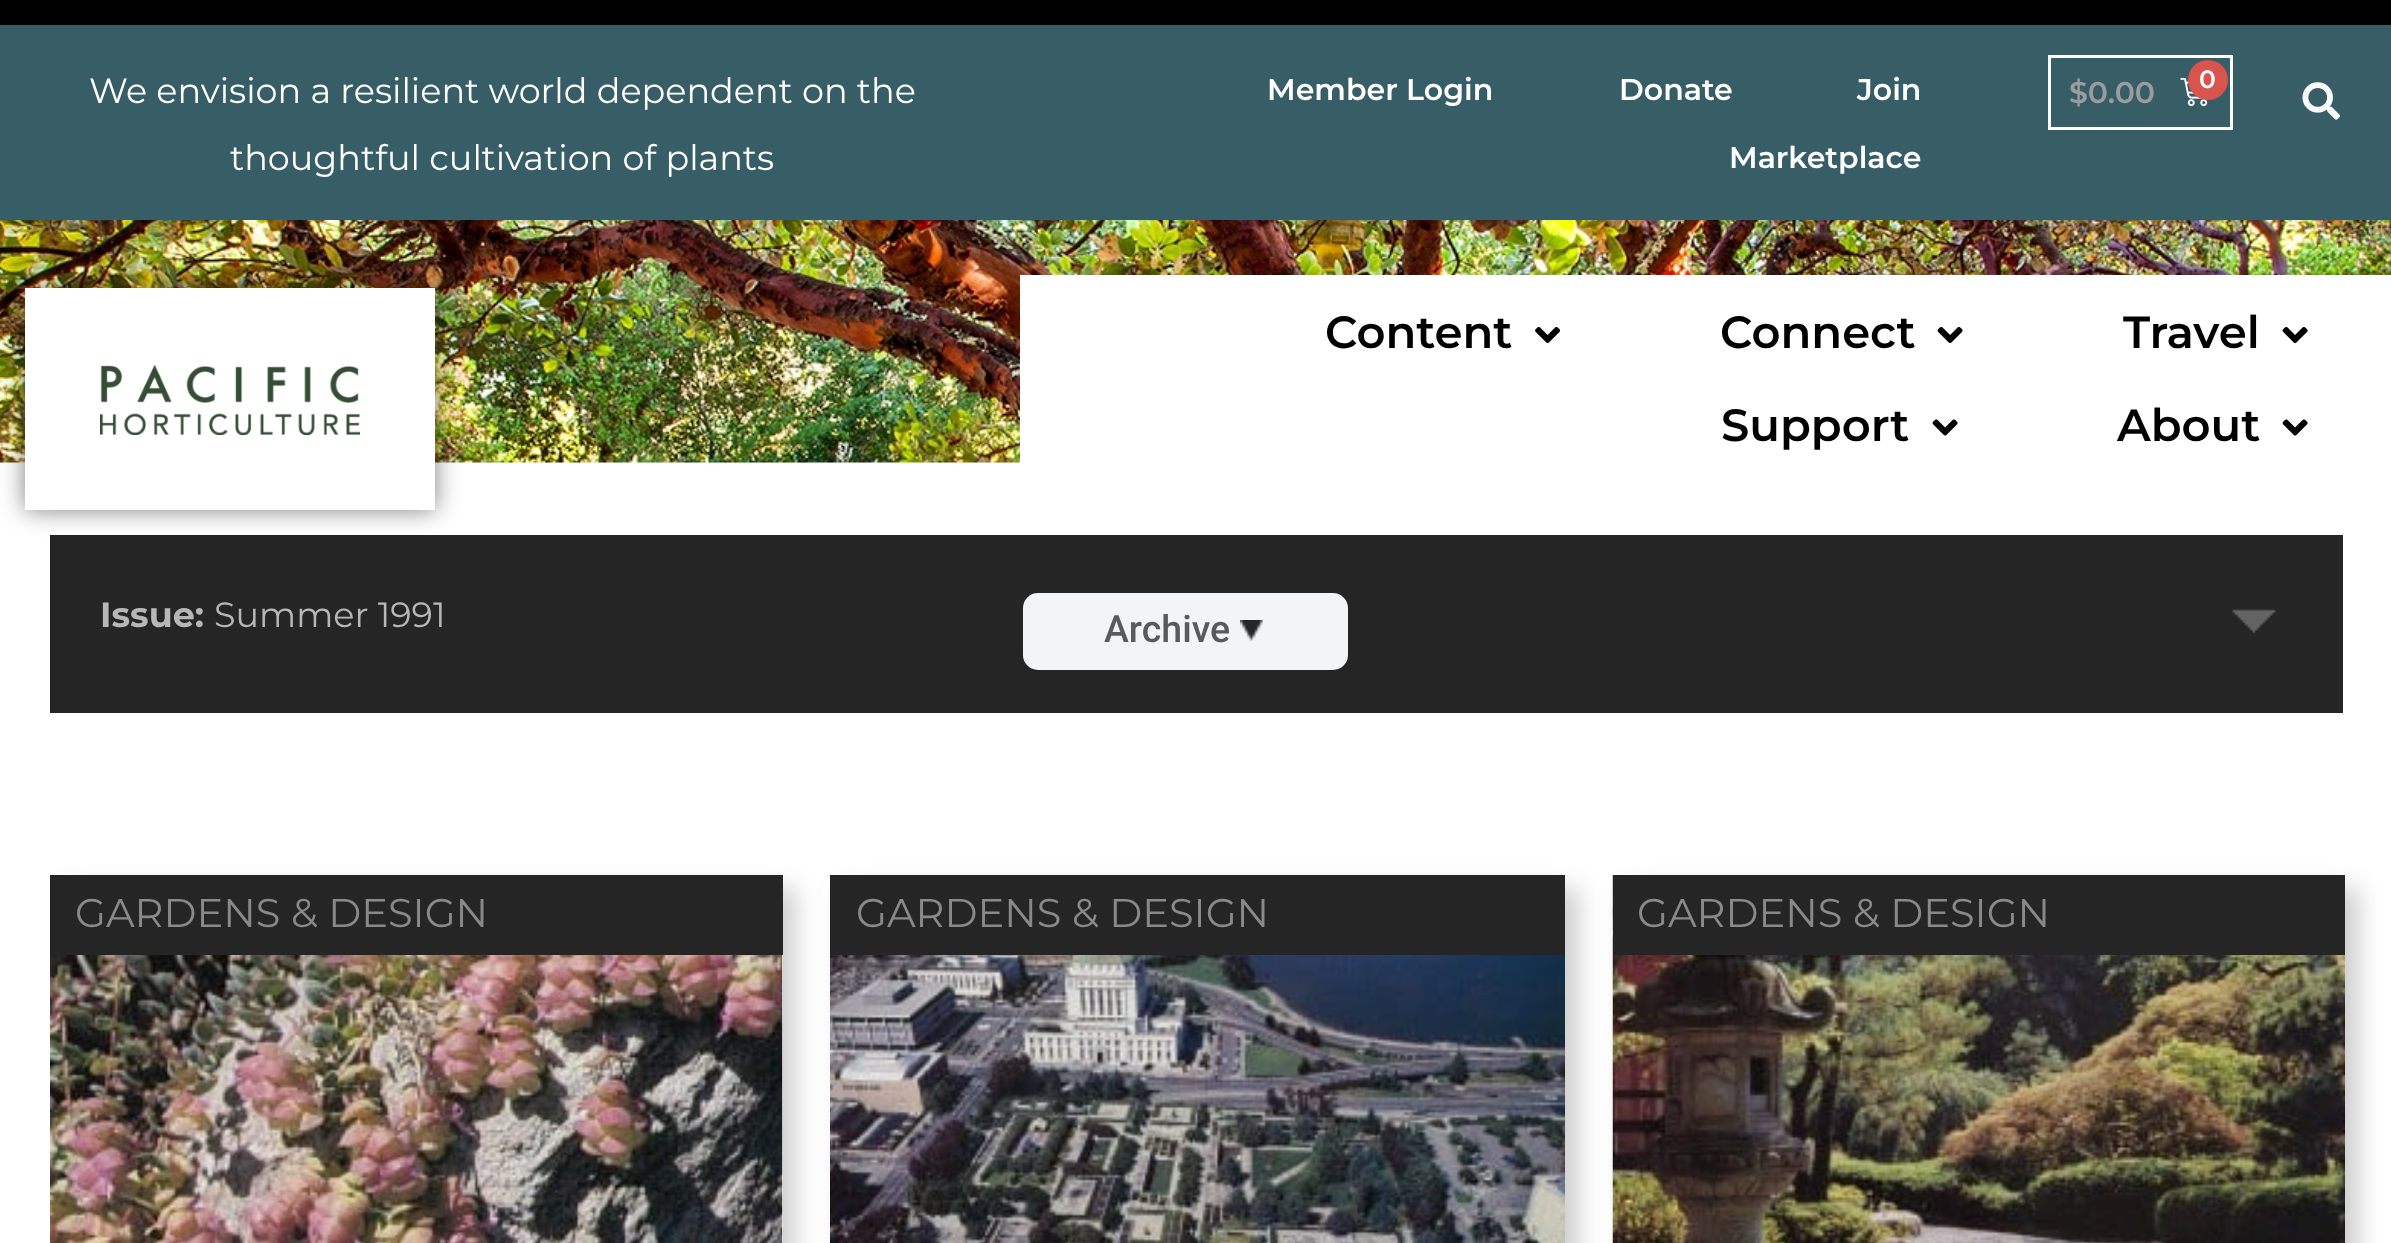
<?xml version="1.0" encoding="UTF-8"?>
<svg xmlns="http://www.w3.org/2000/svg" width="2391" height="1243">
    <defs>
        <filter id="blur1" x="-50%" y="-200%" width="200%" height="500%"><feGaussianBlur stdDeviation="12.5"/></filter>
        <clipPath id="clip1"><rect x="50" y="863" width="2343" height="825"/></clipPath>
    </defs>
    <rect width="100%" height="100%" fill="#FFFFFF"/>
    <rect x="0" y="0" width="2391" height="25" fill="#000000"/>
    <rect x="0" y="462" width="1020" height="1" fill="#F5F5F2"/>
    <image x="0" y="220" width="2391" height="243" href="img_01.png"/>
    <rect x="0" y="25" width="2391" height="195" fill="#375D67"/>
    <text x="89" y="103" font-family="Montserrat" font-size="35" fill="#FFFFFF">We envision a resilient world dependent on the</text>
    <text x="230" y="170" font-family="Montserrat" font-size="35" fill="#FFFFFF">thoughtful cultivation of plants</text>
    <text x="1267" y="100" font-family="Montserrat" font-size="30" font-weight="600" fill="#FFFFFF">Member Login</text>
    <text x="1619" y="100" font-family="Montserrat" font-size="30" font-weight="600" fill="#FFFFFF">Donate</text>
    <text x="1857" y="100" font-family="Montserrat" font-size="30" font-weight="600" fill="#FFFFFF">Join</text>
    <text x="1729" y="168" font-family="Montserrat" font-size="30" font-weight="600" fill="#FFFFFF">Marketplace</text>
    <rect x="2049.5" y="56.5" width="182" height="72" fill="none" stroke="#FFFFFF" stroke-width="3"/>
    <text x="2069" y="103" font-family="Montserrat" font-size="30" font-weight="600" fill="#9B9C9F">$0.00</text>
    <image x="2180" y="77" width="28" height="30" href="img_02.png"/>
    <circle cx="2208" cy="80" r="20" fill="#D9534F"/>
    <text x="2199" y="88" font-family="Montserrat" font-size="25" font-weight="600" fill="#FFFFFF">0</text>
    <image x="2302" y="82" width="38" height="38" href="img_03.png"/>
    <rect x="25" y="288" width="410" height="222" fill="#000000" fill-opacity="0.5" filter="url(#blur1)"/>
    <rect x="25" y="288" width="410" height="222" fill="#FFFFFF"/>
    <image x="100" y="365" width="260" height="70" href="img_04.png"/>
    <rect x="1020" y="275" width="1371" height="188" fill="#FFFFFF"/>
    <text x="1325" y="348" font-family="Montserrat" font-size="45" font-weight="600" fill="#000000">Content</text>
    <image x="1535" y="327" width="26" height="16" href="img_05.png"/>
    <text x="1720" y="348" font-family="Montserrat" font-size="45" font-weight="600" fill="#000000">Connect</text>
    <image x="1937" y="327" width="26" height="16" href="img_06.png"/>
    <text x="2123" y="348" font-family="Montserrat" font-size="45" font-weight="600" fill="#000000">Travel</text>
    <image x="2282" y="327" width="26" height="16" href="img_06.png"/>
    <text x="1721" y="441" font-family="Montserrat" font-size="45" font-weight="600" fill="#000000">Support</text>
    <image x="1932" y="419" width="26" height="17" href="img_07.png"/>
    <text x="2117" y="441" font-family="Montserrat" font-size="45" font-weight="600" fill="#000000">About</text>
    <image x="2282" y="419" width="26" height="17" href="img_07.png"/>
    <rect x="50" y="535" width="2293" height="178" fill="#252525"/>
    <text x="100" y="627" font-family="Montserrat" font-size="35" font-weight="700" fill="#B7B7B7">Issue:</text>
    <text x="214" y="627" font-family="Montserrat" font-size="35" fill="#B7B7B7">Summer 1991</text>
    <rect x="1023" y="593" width="325" height="77" rx="15" fill="#F2F4F5"/>
    <text x="1104" y="642" font-family="Roboto" font-size="37.5" font-weight="500" fill="#5A5A5A">Archive</text>
    <image x="1240" y="620" width="23" height="21" href="img_08.png"/>
    <image x="2232" y="609" width="44" height="25" href="img_09.png"/>
    <g clip-path="url(#clip1)">
        <rect x="63" y="888" width="732" height="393" fill="#000000" fill-opacity="0.2" filter="url(#blur1)"/>
    </g>
    <rect x="782" y="955" width="1" height="288" fill="#FFFFFF"/>
    <rect x="50" y="875" width="733" height="80" fill="#252525"/>
    <text x="75" y="927" font-family="Montserrat" font-size="40" fill="#898989">GARDENS &amp; DESIGN</text>
    <image x="50" y="955" width="733" height="288" href="img_10.png"/>
    <rect x="843" y="888" width="735" height="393" fill="#000000" fill-opacity="0.2" filter="url(#blur1)"/>
    <rect x="830" y="875" width="735" height="80" fill="#252525"/>
    <text x="856" y="927" font-family="Montserrat" font-size="40" fill="#898989">GARDENS &amp; DESIGN</text>
    <image x="830" y="955" width="735" height="288" href="img_11.png"/>
    <rect x="1625" y="888" width="733" height="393" fill="#000000" fill-opacity="0.2" filter="url(#blur1)"/>
    <image x="1612" y="875" width="733" height="368" href="img_12.png"/>
    <rect x="1613" y="875" width="732" height="80" fill="#252525"/>
    <text x="1637" y="927" font-family="Montserrat" font-size="40" fill="#898989">GARDENS &amp; DESIGN</text>
</svg>
